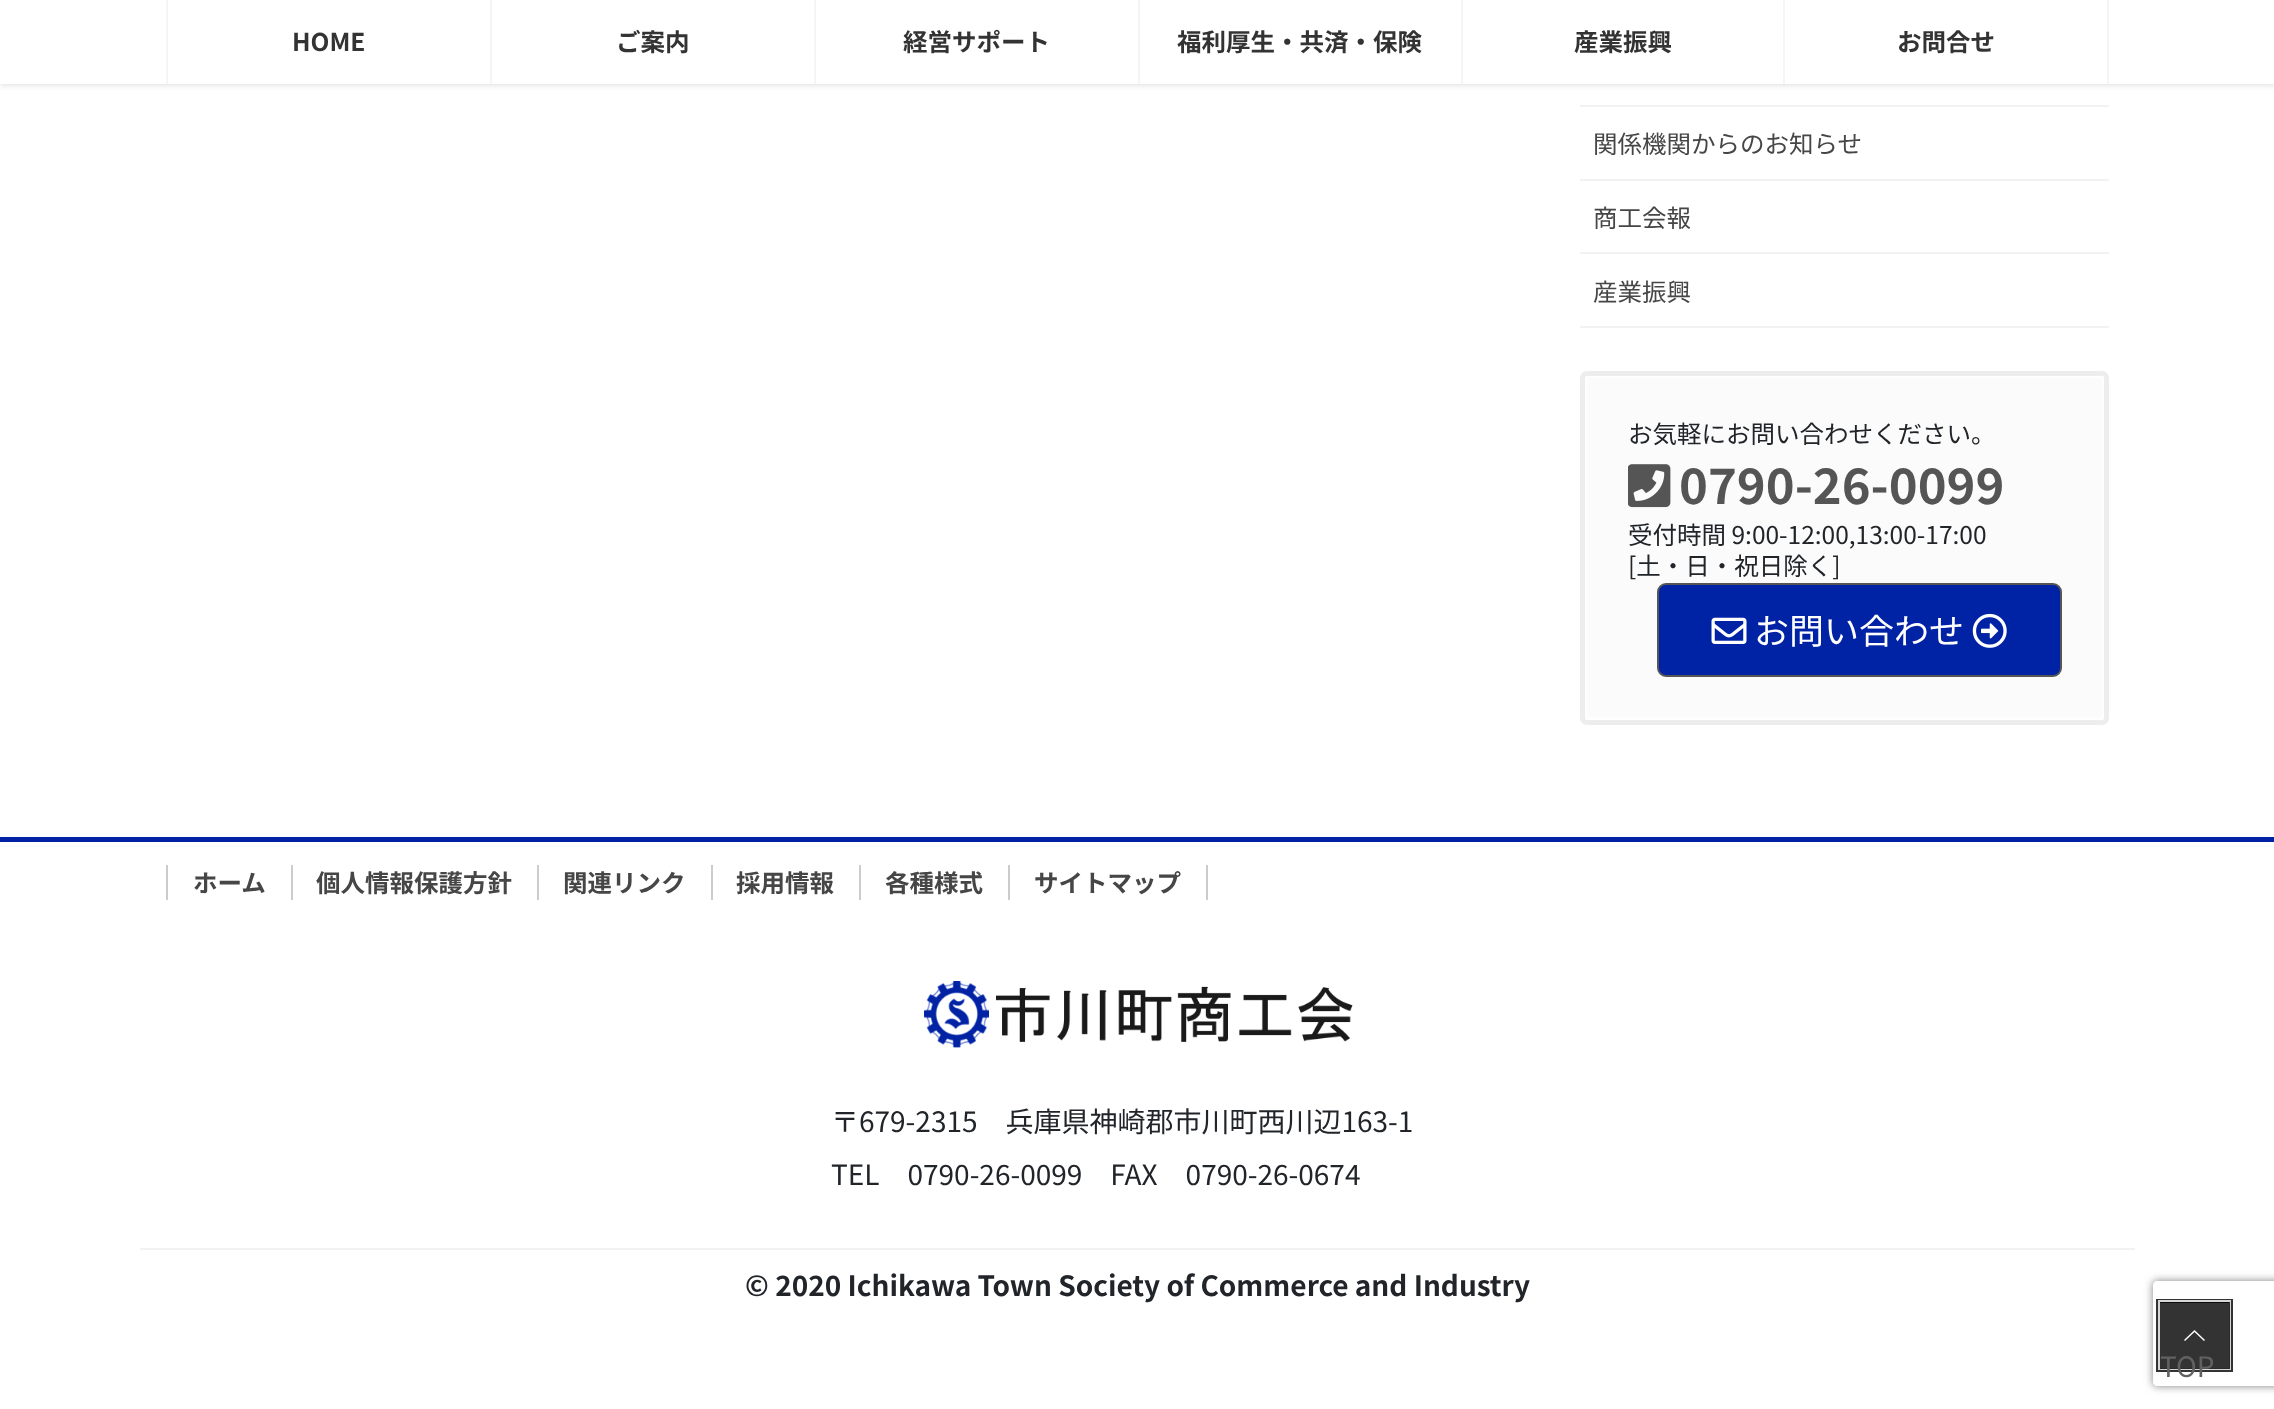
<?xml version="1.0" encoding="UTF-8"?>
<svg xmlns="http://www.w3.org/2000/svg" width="2274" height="1409">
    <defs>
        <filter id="blur1" x="-50%" y="-200%" width="200%" height="500%"><feGaussianBlur stdDeviation="2.5"/></filter>
        <clipPath id="clip1"><path d="M 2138 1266 H 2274 V 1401 H 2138 Z M 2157 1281 H 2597 C 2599 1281 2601 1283 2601 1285 V 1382 C 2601 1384 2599 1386 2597 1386 H 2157 C 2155 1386 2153 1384 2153 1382 V 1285 C 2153 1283 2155 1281 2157 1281 Z" clip-rule="evenodd"/></clipPath>
        <filter id="blur2" x="-50%" y="-200%" width="200%" height="500%"><feGaussianBlur stdDeviation="4.5"/></filter>
    </defs>
    <rect width="100%" height="100%" fill="#FFFFFF"/>
    <rect x="0" y="2" width="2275" height="84" fill="#000000" fill-opacity="0.1" filter="url(#blur1)"/>
    <rect x="0" y="0" width="2274" height="84" fill="#FFFFFF"/>
    <rect x="166" y="0" width="2" height="84" fill="#F5F5F5"/>
    <text x="292" y="51" font-family="Noto Sans JP" font-size="24.5" font-weight="700" fill="#333333">HOME</text>
    <rect x="490" y="0" width="2" height="84" fill="#F5F5F5"/>
    <text x="616" y="51" font-family="Noto Sans JP" font-size="24.5" font-weight="700" fill="#333333">ご案内</text>
    <rect x="814" y="0" width="2" height="84" fill="#F5F5F5"/>
    <text x="903" y="51" font-family="Noto Sans JP" font-size="24.5" font-weight="700" fill="#333333">経営サポート</text>
    <rect x="1138" y="0" width="2" height="84" fill="#F5F5F5"/>
    <text x="1177" y="51" font-family="Noto Sans JP" font-size="24.5" font-weight="700" fill="#333333">福利厚生・共済・保険</text>
    <rect x="1461" y="0" width="2" height="84" fill="#F5F5F5"/>
    <text x="1574" y="51" font-family="Noto Sans JP" font-size="24.5" font-weight="700" fill="#333333">産業振興</text>
    <rect x="2107" y="0" width="2" height="84" fill="#F5F5F5"/>
    <rect x="1783" y="0" width="2" height="84" fill="#F5F5F5"/>
    <text x="1897" y="51" font-family="Noto Sans JP" font-size="24.5" font-weight="700" fill="#333333">お問合せ</text>
    <rect x="1580" y="105" width="529" height="2" fill="#F2F2F2"/>
    <rect x="1580" y="179" width="529" height="2" fill="#F2F2F2"/>
    <text x="1593" y="153" font-family="Noto Sans JP" font-size="24.5" fill="#464646">関係機関からのお知らせ</text>
    <rect x="1580" y="252" width="529" height="2" fill="#F2F2F2"/>
    <text x="1593" y="227" font-family="Noto Sans JP" font-size="24.5" fill="#464646">商工会報</text>
    <rect x="1580" y="326" width="529" height="2" fill="#F2F2F2"/>
    <text x="1593" y="301" font-family="Noto Sans JP" font-size="24.5" fill="#464646">産業振興</text>
    <rect x="1582.5" y="373.5" width="524" height="349" rx="4.5" fill="none" stroke="#EDEDED" stroke-width="5"/>
    <rect x="1586" y="376" width="518" height="343" rx="2" fill="#FBFBFB"/>
    <path d="M 1588 376 C 1587 376 1586 377 1586 378 V 717 C 1586 718 1587 719 1588 719 H 2102 C 2103 719 2104 718 2104 717 V 378 C 2104 377 2103 376 2102 376 Z M 1588 378 V 717 H 2102 V 378 Z" fill="#FEFEFE" fill-rule="evenodd"/>
    <text x="1628" y="443" font-family="Noto Sans JP" font-size="24.5" fill="#212529">お気軽にお問い合わせください。</text>
    <image x="1628" y="464" width="43" height="44" href="img_01.png"/>
    <text x="1679" y="504" font-family="Noto Sans JP" font-size="49" font-weight="700" fill="#555555">0790-26-0099</text>
    <text font-family="Noto Sans JP" font-size="24.5" fill="#212529">
        <tspan x="1628" y="544">受付時間 9:00-12:00,13:00-17:00</tspan>
        <tspan x="1628" y="575">[土・日・祝日除く]</tspan>
    </text>
    <rect x="1658" y="584" width="403" height="92" rx="8" fill="#0022A4" stroke="#555555" stroke-width="2"/>
    <image x="1711" y="617" width="36" height="27" href="img_02.png"/>
    <text x="1754" y="644" font-family="Noto Sans JP" font-size="35" fill="#FFFFFF">お問い合わせ</text>
    <image x="1972" y="613" width="35" height="35" href="img_03.png"/>
    <rect x="0" y="837" width="2274" height="5" fill="#0022A4"/>
    <text x="193" y="892" font-family="Noto Sans JP" font-size="24.5" font-weight="700" fill="#464646">ホーム</text>
    <rect x="166" y="865" width="2" height="35" fill="#CCCCCC"/>
    <text x="316" y="892" font-family="Noto Sans JP" font-size="24.5" font-weight="700" fill="#464646">個人情報保護方針</text>
    <rect x="291" y="865" width="2" height="35" fill="#CCCCCC"/>
    <text x="563" y="892" font-family="Noto Sans JP" font-size="24.5" font-weight="700" fill="#464646">関連リンク</text>
    <rect x="537" y="865" width="2" height="35" fill="#CCCCCC"/>
    <text x="736" y="892" font-family="Noto Sans JP" font-size="24.5" font-weight="700" fill="#464646">採用情報</text>
    <rect x="711" y="865" width="2" height="35" fill="#CCCCCC"/>
    <text x="885" y="892" font-family="Noto Sans JP" font-size="24.5" font-weight="700" fill="#464646">各種様式</text>
    <rect x="859" y="865" width="2" height="35" fill="#CCCCCC"/>
    <text x="1034" y="892" font-family="Noto Sans JP" font-size="24.5" font-weight="700" fill="#464646">サイトマップ</text>
    <rect x="1206" y="865" width="2" height="35" fill="#CCCCCC"/>
    <rect x="1008" y="865" width="2" height="35" fill="#CCCCCC"/>
    <image x="924" y="981" width="429" height="67" href="img_04.png"/>
    <text font-family="Noto Sans JP" font-size="28" fill="#212529">
        <tspan x="831" y="1132">〒679-2315　兵庫県神崎郡市川町西川辺163-1</tspan>
        <tspan x="831" y="1185">TEL　0790-26-0099　FAX　0790-26-0674</tspan>
    </text>
    <rect x="140" y="1248" width="1995" height="2" fill="#F2F2F2"/>
    <text x="745" y="1296" font-family="Noto Sans JP" font-size="28" font-weight="700" fill="#212529">© 2020 Ichikawa Town Society of Commerce and Industry</text>
    <g clip-path="url(#clip1)">
        <rect x="2153" y="1281" width="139" height="105" rx="4" fill="#808080" filter="url(#blur2)"/>
    </g>
    <rect x="2158" y="1301" width="73" height="69" fill="none" stroke="#333333" stroke-width="4"/>
    <rect x="2159" y="1301" width="71" height="68" fill="none" stroke="#D6D6D6" stroke-width="2"/>
    <rect x="2160" y="1302" width="70" height="67" fill="#000000" fill-opacity="0.8"/>
    <path d="M 2205 1340 L 2204 1341 L 2194.5 1332 L 2185 1341 L 2184 1340 L 2194.5 1330 Z" fill="#FFFFFF"/>
    <text x="2160" y="1377" font-family="Noto Sans JP" font-size="28" fill="#616161">TOP</text>
</svg>
